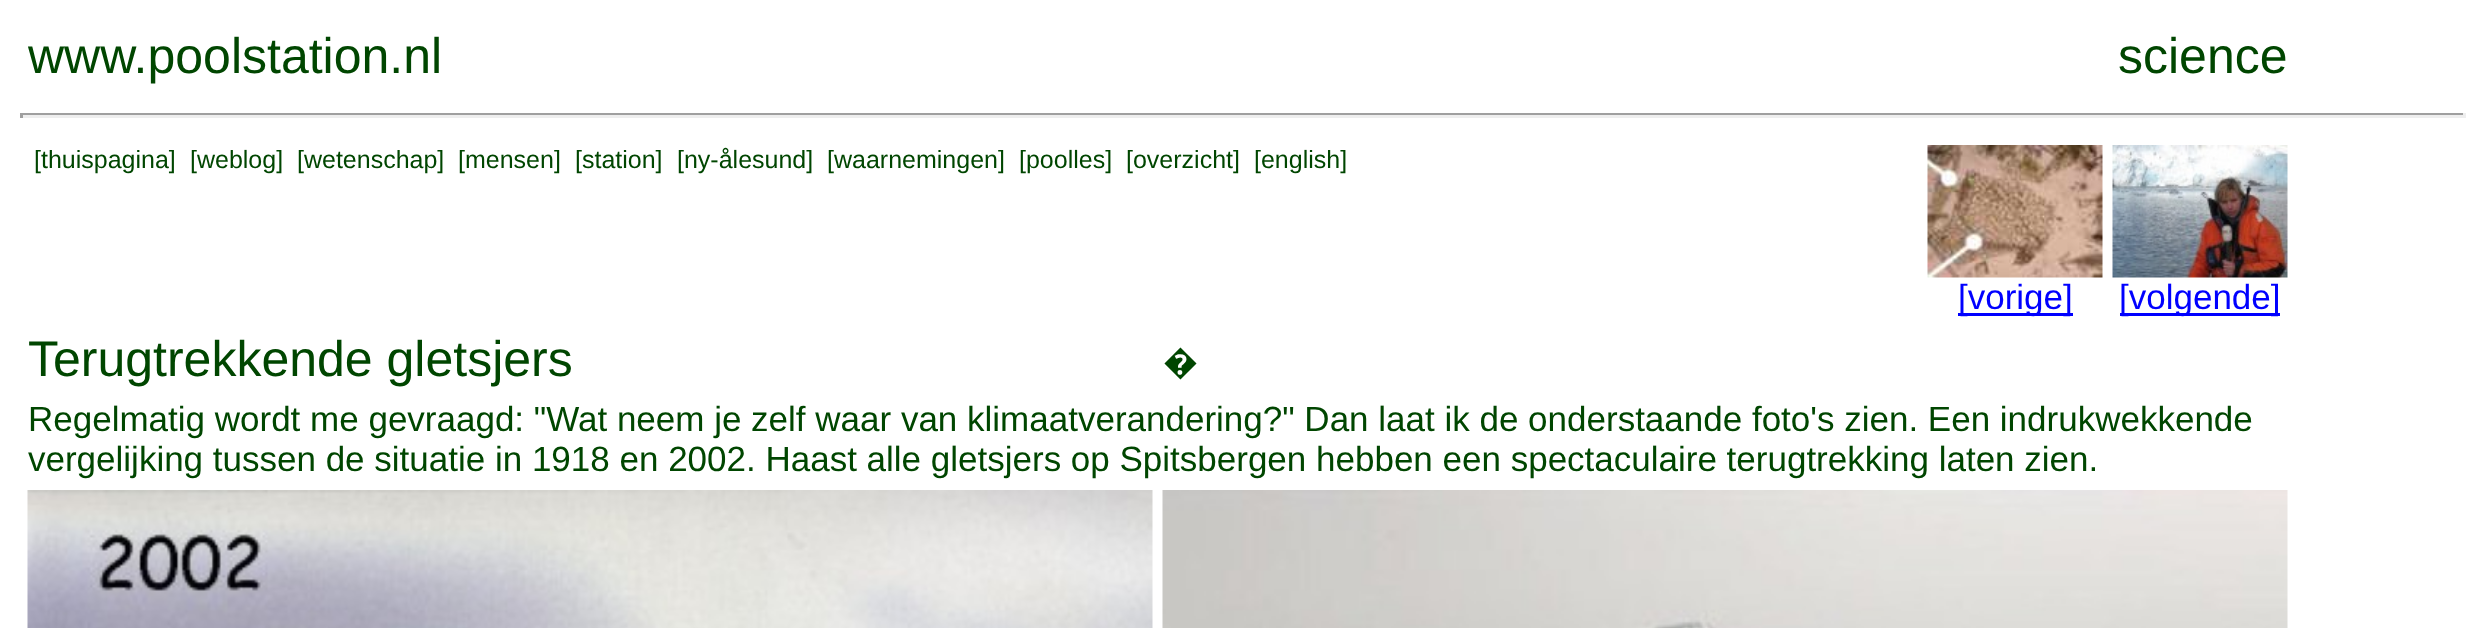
<?xml version="1.0" encoding="UTF-8"?>
<svg xmlns="http://www.w3.org/2000/svg" width="2485" height="628">
    <rect width="100%" height="100%" fill="#FFFFFF"/>
    <text x="28" y="73" font-family="Liberation Sans" font-size="50" fill="#004600">www.poolstation.nl</text>
    <text x="2118" y="73" font-family="Liberation Sans" font-size="50" fill="#004600">science</text>
    <rect x="20" y="113" width="2445" height="2" fill="#9F9F9F"/>
    <rect x="2463" y="113" width="3" height="5" fill="#EEEEEE"/>
    <rect x="20" y="115" width="2445" height="3" fill="#EEEEEE"/>
    <rect x="20" y="113" width="3" height="5" fill="#9F9F9F"/>
    <text x="34" y="168" font-family="Liberation Sans" font-size="25" fill="#004600">[thuispagina]</text>
    <text x="190" y="168" font-family="Liberation Sans" font-size="25" fill="#004600">[weblog]</text>
    <text x="297" y="168" font-family="Liberation Sans" font-size="25" fill="#004600">[wetenschap]</text>
    <text x="458" y="168" font-family="Liberation Sans" font-size="25" fill="#004600">[mensen]</text>
    <text x="575" y="168" font-family="Liberation Sans" font-size="25" fill="#004600">[station]</text>
    <text x="677" y="168" font-family="Liberation Sans" font-size="25" fill="#004600">[ny-ålesund]</text>
    <text x="827" y="168" font-family="Liberation Sans" font-size="25" fill="#004600">[waarnemingen]</text>
    <text x="1019" y="168" font-family="Liberation Sans" font-size="25" fill="#004600">[poolles]</text>
    <text x="1126" y="168" font-family="Liberation Sans" font-size="25" fill="#004600">[overzicht]</text>
    <text x="1254" y="168" font-family="Liberation Sans" font-size="25" fill="#004600">[english]</text>
    <image x="1927" y="145" width="176" height="133" href="img_01.png"/>
    <image x="2112" y="145" width="176" height="133" href="img_02.png"/>
    <rect x="1958" y="313" width="115" height="3" fill="#0000FF"/>
    <text x="1958" y="309" font-family="Liberation Sans" font-size="35" fill="#0000FF">[vorige]</text>
    <rect x="2120" y="313" width="160" height="3" fill="#0000FF"/>
    <text x="2119" y="309" font-family="Liberation Sans" font-size="35" fill="#0000FF">[volgende]</text>
    <text x="28" y="376" font-family="Liberation Sans" font-size="50" fill="#004600">Terugtrekkende gletsjers</text>
    <text x="1163" y="374" font-family="Noto Sans" font-size="35" fill="#004600">�</text>
    <text font-family="Liberation Sans" font-size="35" fill="#004600">
        <tspan x="28" y="431">Regelmatig wordt me gevraagd: "Wat neem je zelf waar van klimaatverandering?" Dan laat ik de onderstaande foto's zien. Een indrukwekkende</tspan>
        <tspan x="28" y="471">vergelijking tussen de situatie in 1918 en 2002. Haast alle gletsjers op Spitsbergen hebben een spectaculaire terugtrekking laten zien.</tspan>
    </text>
    <image x="27" y="490" width="1126" height="138" href="img_03.png"/>
    <image x="1162" y="490" width="1126" height="138" href="img_04.png"/>
</svg>
